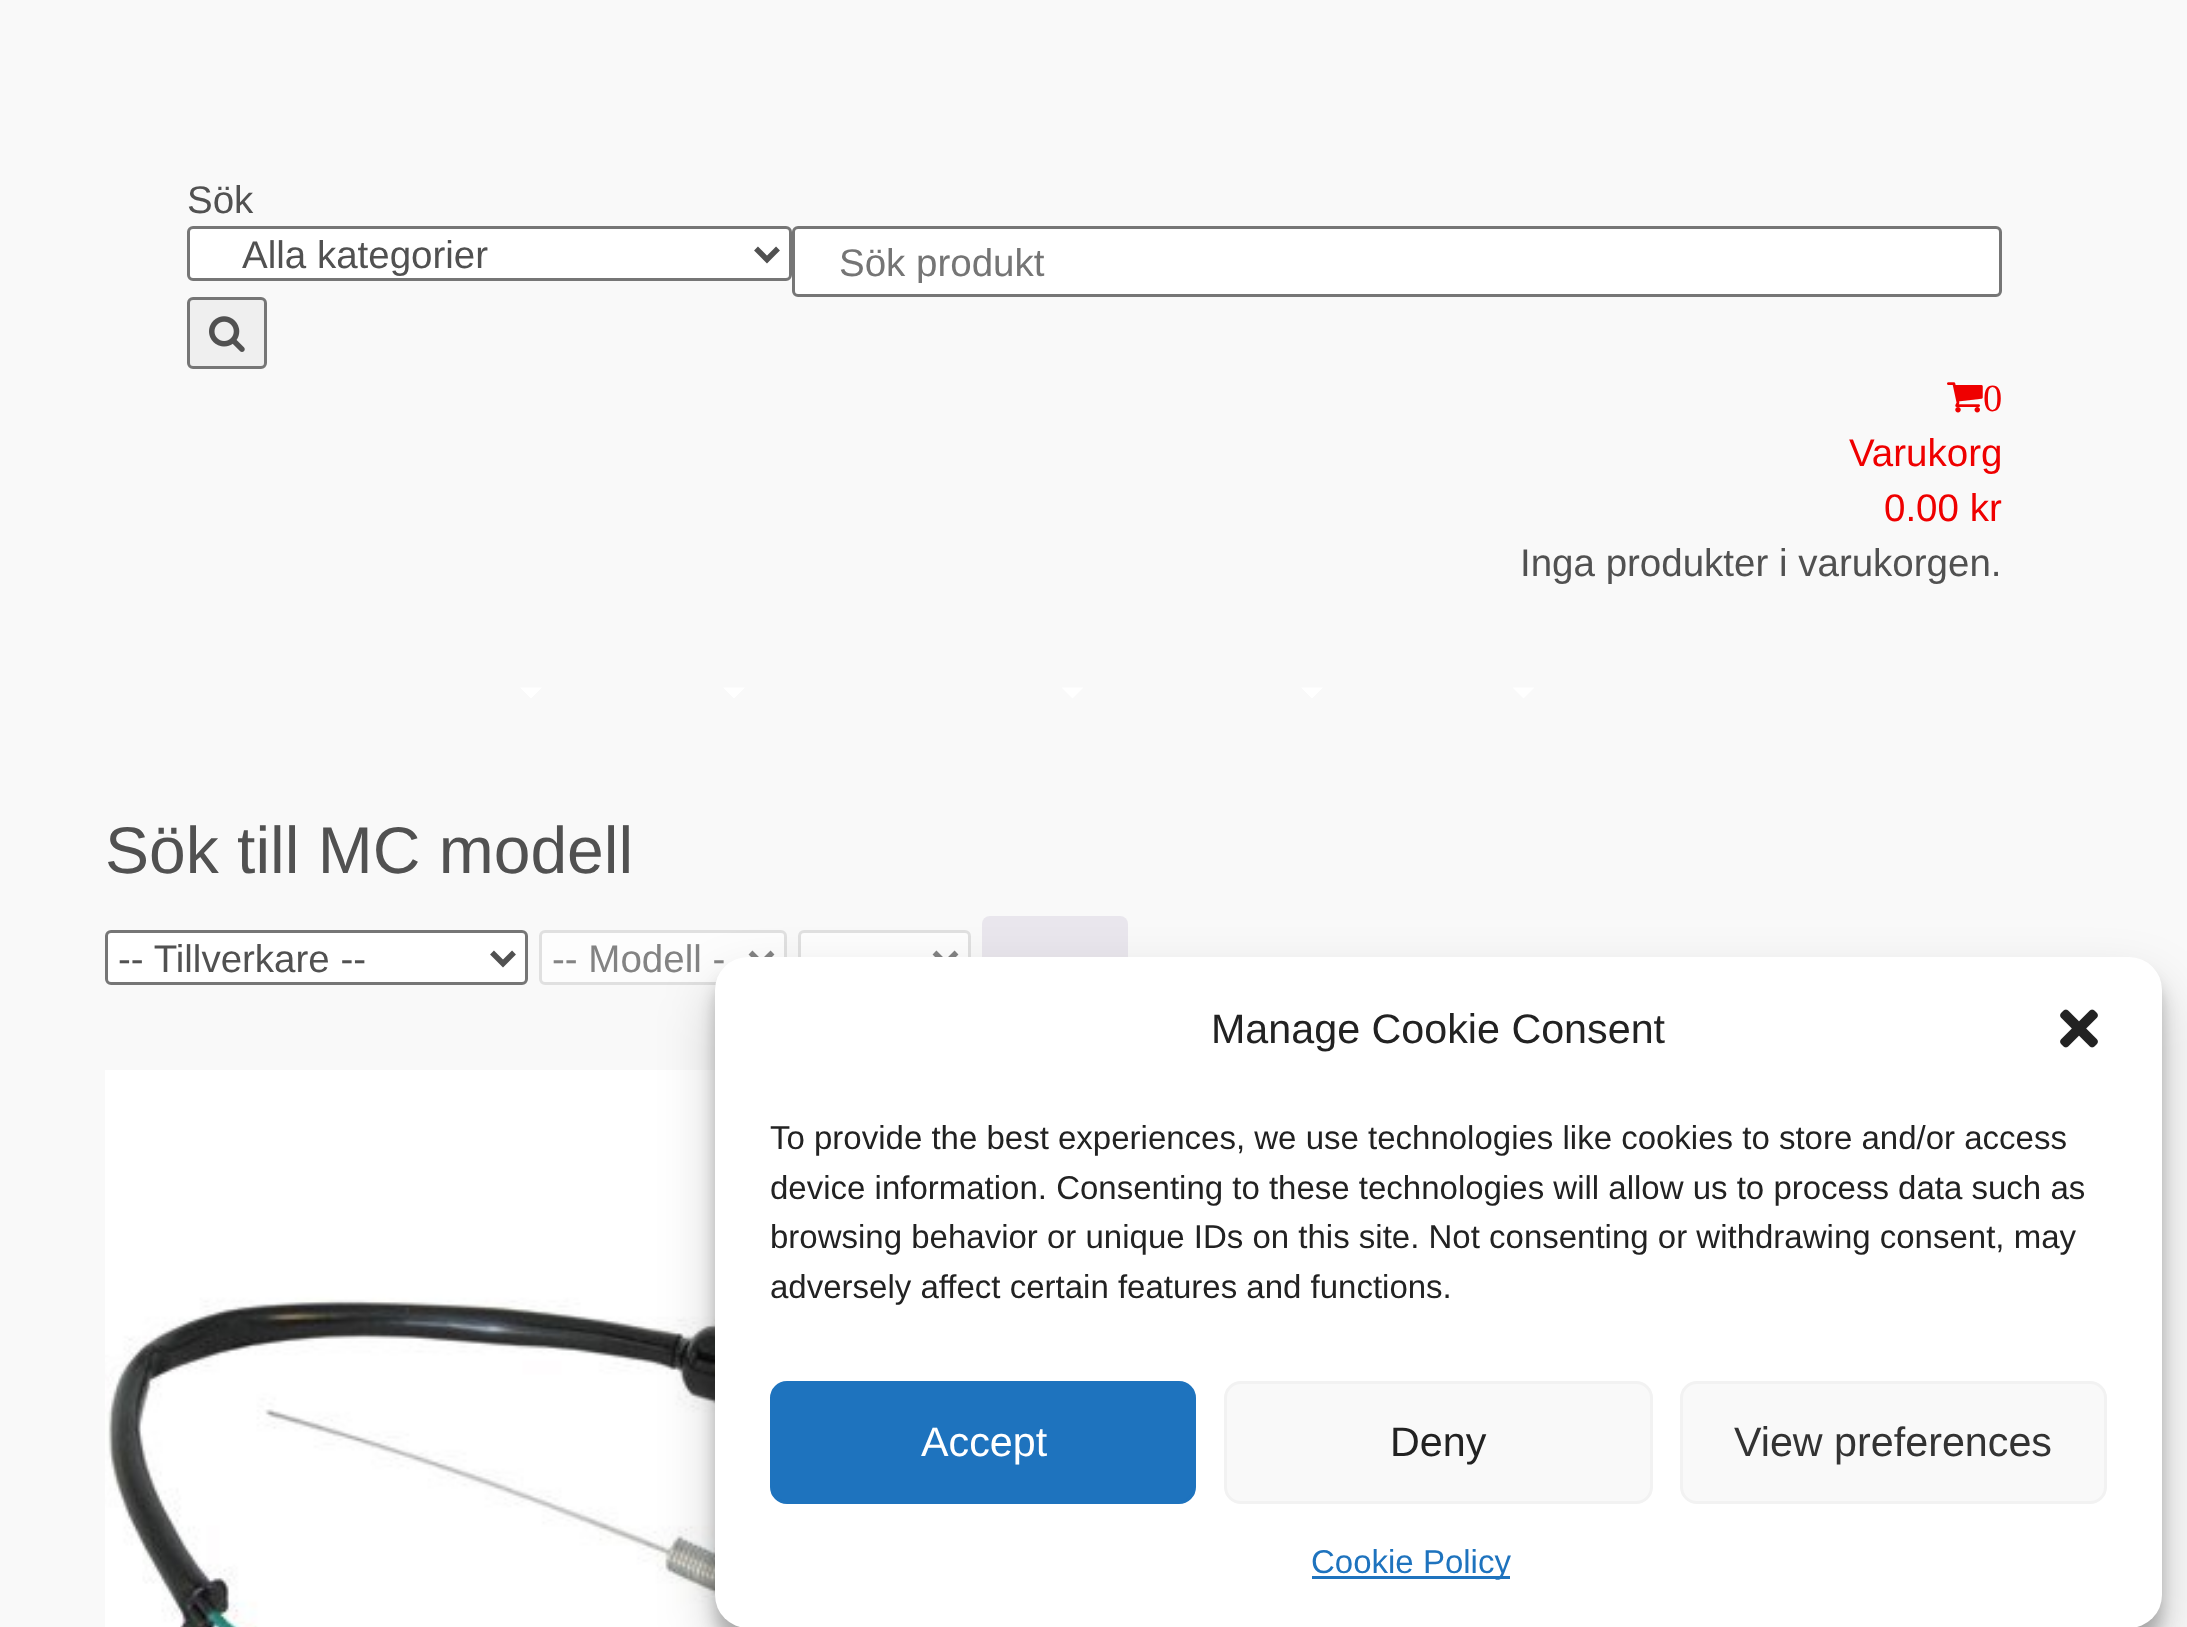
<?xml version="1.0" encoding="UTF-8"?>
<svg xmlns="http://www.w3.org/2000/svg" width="2187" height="1627">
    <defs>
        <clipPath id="clip1"><rect x="839" y="239" width="1116" height="44"/></clipPath>
        <filter id="blur1" x="-50%" y="-200%" width="200%" height="500%"><feGaussianBlur stdDeviation="8"/></filter>
        <filter id="blur2" x="-50%" y="-200%" width="200%" height="500%"><feGaussianBlur stdDeviation="27.5"/></filter>
    </defs>
    <rect width="100%" height="100%" fill="#F9F9F9"/>
    <text x="187" y="213" font-family="Liberation Sans" font-size="38.5" fill="#515151">Sök</text>
    <rect x="188.5" y="227.5" width="602" height="52" rx="4.5" fill="#FFFFFF" stroke="#767676" stroke-width="3"/>
    <path d="M 756 248.5 L 767 259.5 L 778 248.5" fill="none" stroke="#515151" stroke-width="5.5"/>
    <text x="242" y="268" font-family="Liberation Sans" font-size="38.5" fill="#515151">Alla kategorier</text>
    <rect x="793.5" y="227.5" width="1207" height="68" rx="4.5" fill="#FFFFFF" stroke="#767676" stroke-width="3"/>
    <g clip-path="url(#clip1)">
        <text x="839" y="276" font-family="Liberation Sans" font-size="38.5" fill="#757575">Sök produkt</text>
    </g>
    <rect x="188.5" y="298.5" width="77" height="69" rx="4.5" fill="#EFEFEF" stroke="#767676" stroke-width="3"/>
    <image x="209" y="316" width="36" height="36" href="img_01.png"/>
    <image x="1947" y="382" width="36" height="31" href="img_02.png"/>
    <text x="1983" y="411" font-family="Liberation Serif" font-size="38.5" fill="#EF0000">0</text>
    <text x="1849" y="466" font-family="Liberation Sans" font-size="38.5" fill="#EF0000">Varukorg</text>
    <text x="1884" y="521" font-family="Liberation Sans" font-size="38.5" fill="#EF0000">0.00 kr</text>
    <text x="1520" y="576" font-family="Liberation Sans" font-size="38.5" fill="#515151">Inga produkter i varukorgen.</text>
    <path d="M 520 687.5 H 542 L 531 698.5 Z" fill="#FFFFFF"/>
    <path d="M 723 687.5 H 745 L 734 698.5 Z" fill="#FFFFFF"/>
    <path d="M 1061.5 687.5 H 1083.5 L 1072.5 698.5 Z" fill="#FFFFFF"/>
    <path d="M 1301 687.5 H 1323 L 1312 698.5 Z" fill="#FFFFFF"/>
    <path d="M 1512.5 687.5 H 1534.5 L 1523.5 698.5 Z" fill="#FFFFFF"/>
    <text x="105" y="873" font-family="Liberation Sans" font-size="66" fill="#515151">Sök till MC modell</text>
    <rect x="106.5" y="931.5" width="420" height="52" rx="4.5" fill="#FFFFFF" stroke="#767676" stroke-width="3"/>
    <path d="M 492 952.5 L 503 963.5 L 514 952.5" fill="none" stroke="#515151" stroke-width="5.5"/>
    <text x="118" y="972" font-family="Liberation Sans" font-size="38.5" fill="#515151">-- Tillverkare --</text>
    <rect x="540.5" y="931.5" width="245" height="52" rx="4.5" fill="#FDFDFD" stroke="#E0E0E0" stroke-width="3"/>
    <path d="M 750.5 952.5 L 761.5 963.5 L 772.5 952.5" fill="none" stroke="#838383" stroke-width="5.5"/>
    <text x="552" y="972" font-family="Liberation Sans" font-size="38.5" fill="#838383">-- Modell -</text>
    <rect x="799.5" y="931.5" width="170" height="52" rx="4.5" fill="#FDFDFD" stroke="#E0E0E0" stroke-width="3"/>
    <path d="M 934.5 952.5 L 945.5 963.5 L 956.5 952.5" fill="none" stroke="#838383" stroke-width="5.5"/>
    <rect x="982" y="916" width="146" height="85" rx="8" fill="#E9E6ED"/>
    <image x="105" y="1070" width="635" height="557" href="img_03.png"/>
    <rect x="715" y="974" width="1447" height="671" rx="33" fill="#000000" fill-opacity="0.23" filter="url(#blur1)"/>
    <rect x="715" y="985" width="1447" height="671" rx="33" fill="#000000" fill-opacity="0.19" filter="url(#blur2)"/>
    <rect x="715" y="957" width="1447" height="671" rx="33" fill="#FFFFFF"/>
    <text x="1211" y="1043" font-family="Liberation Sans" font-size="41.25" fill="#222222">Manage Cookie Consent</text>
    <image x="2060" y="1009" width="38" height="39" href="img_04.png"/>
    <text font-family="Liberation Sans" font-size="33" fill="#222222">
        <tspan x="770" y="1149">To provide the best experiences, we use technologies like cookies to store and/or access</tspan>
        <tspan x="770" y="1199">device information. Consenting to these technologies will allow us to process data such as</tspan>
        <tspan x="770" y="1248">browsing behavior or unique IDs on this site. Not consenting or withdrawing consent, may</tspan>
        <tspan x="770" y="1298">adversely affect certain features and functions.</tspan>
    </text>
    <rect x="771.5" y="1382.5" width="423" height="120" rx="15.5" fill="#1E73BE" stroke="#1E73BE" stroke-width="3"/>
    <text x="921" y="1456" font-family="Liberation Sans" font-size="41.25" fill="#FFFFFF">Accept</text>
    <rect x="1225.5" y="1382.5" width="426" height="120" rx="15.5" fill="#F9F9F9" stroke="#F2F2F2" stroke-width="3"/>
    <text x="1390" y="1456" font-family="Liberation Sans" font-size="41.25" fill="#222222">Deny</text>
    <rect x="1681.5" y="1382.5" width="424" height="120" rx="15.5" fill="#F9F9F9" stroke="#F2F2F2" stroke-width="3"/>
    <text x="1734" y="1456" font-family="Liberation Sans" font-size="41.25" fill="#333333">View preferences</text>
    <rect x="1312" y="1576" width="198" height="3" fill="#1E73BE"/>
    <text x="1311" y="1573" font-family="Liberation Sans" font-size="33" fill="#1E73BE">Cookie Policy</text>
</svg>
